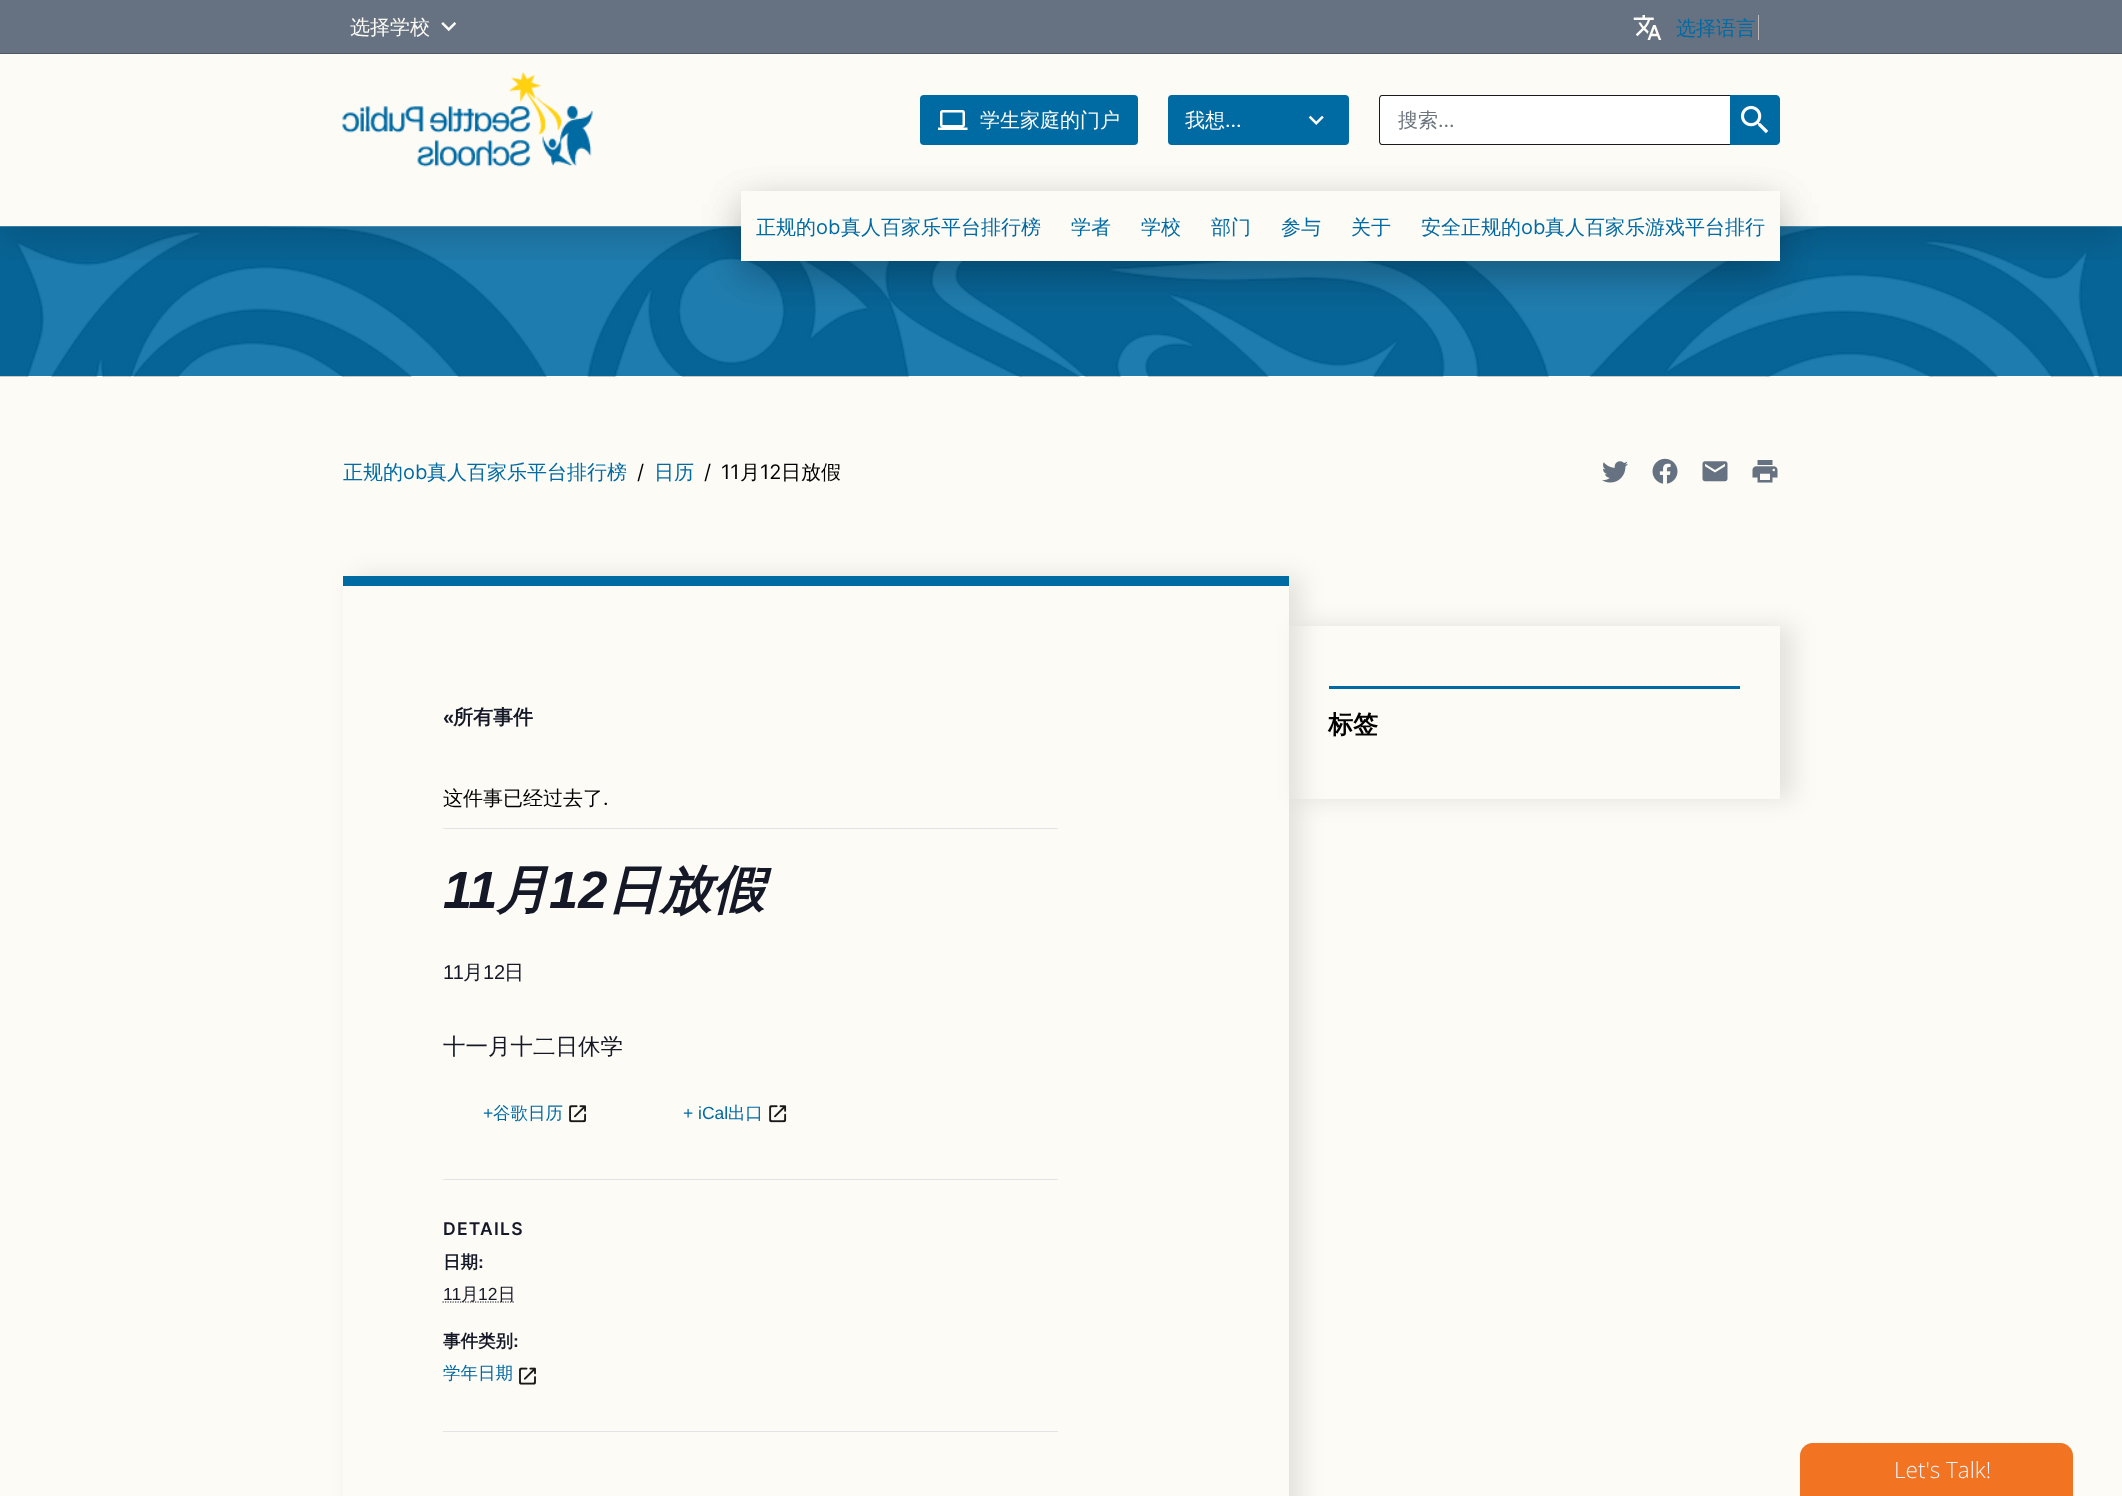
<?xml version="1.0" encoding="UTF-8"?>
<svg xmlns="http://www.w3.org/2000/svg" width="2122" height="1496">
    <defs>
        <clipPath id="clip1"><rect x="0" y="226" width="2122" height="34"/></clipPath>
        <filter id="blur1" x="-50%" y="-200%" width="200%" height="500%"><feGaussianBlur stdDeviation="19"/></filter>
        <clipPath id="clip2"><path d="M 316 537 H 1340 V 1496 H 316 Z M 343 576 H 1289 V 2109 H 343 Z" clip-rule="evenodd"/></clipPath>
        <filter id="blur2" x="-50%" y="-200%" width="200%" height="500%"><feGaussianBlur stdDeviation="12.5"/></filter>
        <clipPath id="clip3"><path d="M 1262 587 H 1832 V 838 H 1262 Z M 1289 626 H 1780 V 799 H 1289 Z" clip-rule="evenodd"/></clipPath>
        <filter id="blur3" x="-50%" y="-200%" width="200%" height="500%"><feGaussianBlur stdDeviation="0.5"/></filter>
    </defs>
    <rect width="100%" height="100%" fill="#FDFBF5"/>
    <image x="0" y="226" width="2122" height="151" href="img_07.png"/>
    <g clip-path="url(#clip1)">
        <rect x="0" y="13" width="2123" height="226" fill="#000000" fill-opacity="0.15" filter="url(#blur1)"/>
    </g>
    <rect x="0" y="0" width="2122" height="53" fill="#667282"/>
    <text x="350" y="34" font-family="WenQuanYi Zen Hei" font-size="20" font-weight="500" fill="#FDFBF5">选择学校</text>
    <image x="441" y="22" width="16" height="10" href="img_01.png"/>
    <image x="1633" y="15" width="29" height="25" href="img_02.png"/>
    <text x="1676" y="35" font-family="WenQuanYi Zen Hei" font-size="20" font-weight="500" fill="#006AA3">选择语言</text>
    <rect x="1758" y="15" width="1" height="25" fill="#BBBBBB"/>
    <rect x="0" y="53" width="2122" height="1" fill="#4F5762"/>
    <image x="342" y="72" width="251" height="95" href="img_03.png"/>
    <rect x="920" y="95" width="218" height="50" rx="4" fill="#006AA3"/>
    <image x="938" y="110" width="30" height="20" href="img_04.png"/>
    <text x="980" y="127" font-family="WenQuanYi Zen Hei" font-size="20" font-weight="500" fill="#FDFBF5">学生家庭的门户</text>
    <rect x="1168" y="95" width="181" height="50" rx="4" fill="#006AA3"/>
    <text x="1185" y="127" font-family="WenQuanYi Zen Hei" font-size="20" font-weight="500" fill="#FDFBF5">我想</text>
    <image x="1308" y="115" width="16" height="10" href="img_05.png"/>
    <text x="1225" y="127" font-family="Inter" font-size="20" fill="#FDFBF5">...</text>
    <path d="M 1382.5 96 H 1730 V 144 H 1382.5 C 1381 144 1380 143 1380 141.5 V 98.5 C 1380 97 1381 96 1382.5 96 Z" fill="#FFFFFF"/>
    <path d="M 1382 95 H 1730 V 145 H 1382 C 1380 145 1379 143 1379 141 V 99 C 1379 97 1380 95 1382 95 Z M 1382 96 H 1730 V 144 H 1382 C 1381 144 1380 143 1380 141 V 99 C 1380 97 1381 96 1382 96 Z" fill="#191919" fill-rule="evenodd"/>
    <text x="1398" y="127" font-family="WenQuanYi Zen Hei" font-size="20" font-weight="500" fill="#6C757D">搜索</text>
    <text x="1438" y="127" font-family="Inter" font-size="20" fill="#6C757D">...</text>
    <path d="M 1730 95 H 1776 C 1778 95 1780 97 1780 99 V 141 C 1780 143 1778 145 1776 145 H 1730 Z" fill="#006AA3"/>
    <image x="1740" y="105" width="29" height="29" href="img_06.png"/>
    <rect x="741" y="204" width="1039" height="70" fill="#000000" fill-opacity="0.15" filter="url(#blur1)"/>
    <rect x="741" y="204" width="1039" height="70" fill="#000000" fill-opacity="0.15" filter="url(#blur1)"/>
    <rect x="741" y="191" width="1039" height="70" fill="#FDFBF5"/>
    <text x="756" y="234" font-family="WenQuanYi Zen Hei" font-size="20" font-weight="500" fill="#006AA3">正规的</text>
    <text x="816" y="234" font-family="Inter" font-size="20" fill="#006AA3">ob</text>
    <text x="841" y="234" font-family="WenQuanYi Zen Hei" font-size="20" font-weight="500" fill="#006AA3">真人百家乐平台排行榜</text>
    <text x="1071" y="234" font-family="WenQuanYi Zen Hei" font-size="20" font-weight="500" fill="#006AA3">学者</text>
    <text x="1141" y="234" font-family="WenQuanYi Zen Hei" font-size="20" font-weight="500" fill="#006AA3">学校</text>
    <text x="1211" y="234" font-family="WenQuanYi Zen Hei" font-size="20" font-weight="500" fill="#006AA3">部门</text>
    <text x="1281" y="234" font-family="WenQuanYi Zen Hei" font-size="20" font-weight="500" fill="#006AA3">参与</text>
    <text x="1351" y="234" font-family="WenQuanYi Zen Hei" font-size="20" font-weight="500" fill="#006AA3">关于</text>
    <text x="1421" y="234" font-family="WenQuanYi Zen Hei" font-size="20" font-weight="500" fill="#006AA3">安全正规的</text>
    <text x="1521" y="234" font-family="Inter" font-size="20" fill="#006AA3">ob</text>
    <text x="1545" y="234" font-family="WenQuanYi Zen Hei" font-size="20" font-weight="500" fill="#006AA3">真人百家乐游戏平台排行</text>
    <text x="343" y="479" font-family="WenQuanYi Zen Hei" font-size="20" font-weight="500" fill="#006AA3">正规的</text>
    <text x="403" y="479" font-family="Inter" font-size="20" fill="#006AA3">ob</text>
    <text x="427" y="479" font-family="WenQuanYi Zen Hei" font-size="20" font-weight="500" fill="#006AA3">真人百家乐平台排行榜</text>
    <text x="637" y="479" font-family="Inter" font-size="20" fill="#000000">/</text>
    <text x="654" y="479" font-family="WenQuanYi Zen Hei" font-size="20" font-weight="500" fill="#006AA3">日历</text>
    <text x="704" y="479" font-family="Inter" font-size="20" fill="#000000">/</text>
    <text x="721" y="479" font-family="Inter" font-size="20" fill="#000000">11</text>
    <text x="740" y="479" font-family="WenQuanYi Zen Hei" font-size="20" font-weight="500" fill="#000000">月</text>
    <text x="760" y="479" font-family="Inter" font-size="20" fill="#000000">12</text>
    <text x="781" y="479" font-family="WenQuanYi Zen Hei" font-size="20" font-weight="500" fill="#000000">日放假</text>
    <image x="1602" y="461" width="26" height="22" href="img_08.png"/>
    <image x="1652" y="458" width="26" height="26" href="img_09.png"/>
    <image x="1702" y="461" width="26" height="21" href="img_10.png"/>
    <image x="1752" y="460" width="26" height="23" href="img_11.png"/>
    <g clip-path="url(#clip2)">
        <rect x="355" y="576" width="946" height="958" fill="#000000" fill-opacity="0.1" filter="url(#blur2)"/>
    </g>
    <rect x="343" y="576" width="946" height="10" fill="#006AA3"/>
    <text x="443" y="724" font-family="Liberation Sans" font-size="20" font-weight="700" fill="#141827">«</text>
    <text x="453" y="724" font-family="WenQuanYi Zen Hei" font-size="20" font-weight="700" fill="#141827">所有事件</text>
    <rect x="443" y="828" width="615" height="1" fill="#E4E4E4"/>
    <text x="443" y="805" font-family="WenQuanYi Zen Hei" font-size="20" font-weight="500" fill="#000000">这件事已经过去了</text>
    <text x="603" y="805" font-family="Inter" font-size="20" fill="#000000">.</text>
    <text x="443" y="908" font-family="Liberation Sans" font-size="52.5" font-weight="700" font-style="italic" fill="#141827">11</text>
    <text x="496" y="908" font-family="WenQuanYi Zen Hei" font-size="52.5" font-weight="700" font-style="italic" fill="#141827">月</text>
    <text x="549" y="908" font-family="Liberation Sans" font-size="52.5" font-weight="700" font-style="italic" fill="#141827">12</text>
    <text x="607" y="908" font-family="WenQuanYi Zen Hei" font-size="52.5" font-weight="700" font-style="italic" fill="#141827">日放假</text>
    <text x="443" y="979" font-family="Liberation Sans" font-size="20" fill="#141827">11</text>
    <text x="463" y="979" font-family="WenQuanYi Zen Hei" font-size="20" font-weight="500" fill="#141827">月</text>
    <text x="483" y="979" font-family="Liberation Sans" font-size="20" fill="#141827">12</text>
    <text x="504" y="979" font-family="WenQuanYi Zen Hei" font-size="20" font-weight="500" fill="#141827">日</text>
    <text x="443" y="1054" font-family="WenQuanYi Zen Hei" font-size="22.5" font-weight="500" fill="#141827">十一月十二日休学</text>
    <text x="483" y="1119" font-family="Liberation Sans" font-size="17.5" fill="#006AA3">+</text>
    <text x="493" y="1119" font-family="WenQuanYi Zen Hei" font-size="17.5" font-weight="500" fill="#006AA3">谷歌日历</text>
    <image x="569" y="1105" width="17" height="18" href="img_12.png"/>
    <text x="683" y="1119" font-family="Liberation Sans" font-size="17.5" fill="#006AA3">+ iCal</text>
    <text x="728" y="1119" font-family="WenQuanYi Zen Hei" font-size="17.5" font-weight="500" fill="#006AA3">出口</text>
    <image x="769" y="1105" width="18" height="18" href="img_13.png"/>
    <rect x="443" y="1179" width="615" height="1" fill="#E4E4E4"/>
    <text x="443" y="1235" font-family="Inter" font-size="17.5" font-weight="600" letter-spacing="1.25" fill="#141827">DETAILS</text>
    <text x="443" y="1268" font-family="WenQuanYi Zen Hei" font-size="17.5" font-weight="700" fill="#141827">日期</text>
    <text x="478" y="1268" font-family="Liberation Sans" font-size="17.5" font-weight="700" fill="#141827">:</text>
    <text x="443" y="1300" font-family="Liberation Sans" font-size="17.5" fill="#141827">11</text>
    <path d="M 442.5 1302 H 515" fill="none" stroke="#141827" stroke-width="1.2" stroke-dasharray="1.25 1.25"/>
    <text x="461" y="1300" font-family="WenQuanYi Zen Hei" font-size="17.5" font-weight="500" fill="#141827">月</text>
    <text x="478" y="1300" font-family="Liberation Sans" font-size="17.5" fill="#141827">12</text>
    <text x="498" y="1300" font-family="WenQuanYi Zen Hei" font-size="17.5" font-weight="500" fill="#141827">日</text>
    <text x="443" y="1347" font-family="WenQuanYi Zen Hei" font-size="17.5" font-weight="700" fill="#141827">事件类别</text>
    <text x="513" y="1347" font-family="Liberation Sans" font-size="17.5" font-weight="700" fill="#141827">:</text>
    <text x="443" y="1379" font-family="WenQuanYi Zen Hei" font-size="17.5" font-weight="500" fill="#006AA3">学年日期</text>
    <image x="519" y="1367" width="17" height="18" href="img_14.png"/>
    <rect x="443" y="1431" width="615" height="1" fill="#E4E4E4"/>
    <g clip-path="url(#clip3)">
        <rect x="1301" y="626" width="492" height="173" fill="#000000" fill-opacity="0.1" filter="url(#blur2)"/>
    </g>
    <rect x="1329" y="686" width="411" height="3" fill="#006AA3"/>
    <text x="1328" y="733" font-family="WenQuanYi Zen Hei" font-size="25" font-weight="700" fill="#000000">标签</text>
    <rect x="1800" y="1443" width="273" height="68" rx="13" fill="#000000" fill-opacity="0.22" filter="url(#blur3)"/>
    <path d="M 1813 1443 H 2060 C 2067 1443 2073 1449 2073 1456 V 1496 H 1800 V 1456 C 1800 1449 1806 1443 1813 1443 Z" fill="#F27422"/>
    <text x="1894" y="1478" font-family="Open Sans" font-size="22.5" font-weight="300" fill="#E9F4FF">Let's Talk!</text>
</svg>
